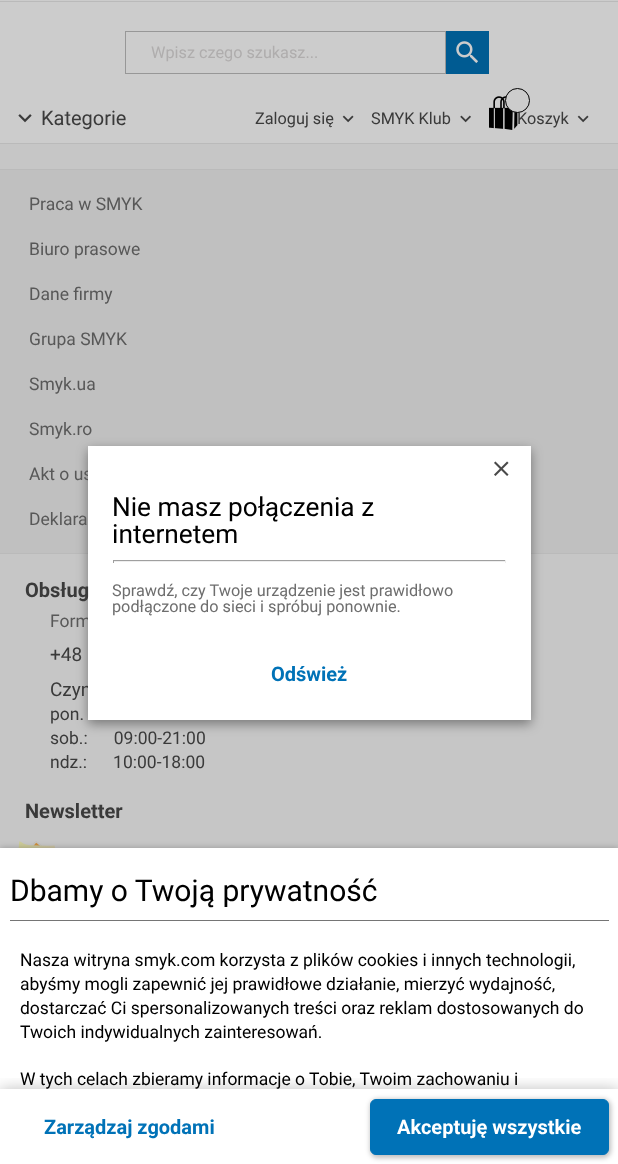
<?xml version="1.0" encoding="UTF-8"?>
<svg xmlns="http://www.w3.org/2000/svg" width="618" height="1164">
    <defs>
        <filter id="blur1" x="-50%" y="-200%" width="200%" height="500%"><feGaussianBlur stdDeviation="3"/></filter>
        <clipPath id="clip1"><rect x="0" y="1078" width="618" height="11"/></clipPath>
        <filter id="blur2" x="-50%" y="-200%" width="200%" height="500%"><feGaussianBlur stdDeviation="7.5"/></filter>
        <filter id="blur3" x="-50%" y="-200%" width="200%" height="500%"><feGaussianBlur stdDeviation="2.5"/></filter>
        <filter id="blur4" x="-50%" y="-200%" width="200%" height="500%"><feGaussianBlur stdDeviation="6"/></filter>
    </defs>
    <rect width="100%" height="100%" fill="#C6C6C6"/>
    <rect x="0" y="0" width="618" height="143" fill="#CCCCCC"/>
    <rect x="0" y="143" width="618" height="1" fill="#BABABA"/>
    <rect x="125.5" y="31.5" width="320" height="42" fill="none" stroke="#979797"/>
    <text x="151" y="58" font-family="Roboto" font-size="16.25" fill="#AFADAD">Wpisz czego szukasz...</text>
    <rect x="446" y="31" width="43" height="43" fill="#005B92"/>
    <image x="456" y="41" width="22" height="22" href="img_01.png"/>
    <image x="18" y="114" width="14" height="9" href="img_02.png"/>
    <text x="41" y="125" font-family="Roboto" font-size="20" fill="#3A3A3A">Kategorie</text>
    <text x="255" y="124" font-family="Roboto" font-size="16.25" fill="#3A3A3A">Zaloguj się</text>
    <image x="342" y="115" width="12" height="8" href="img_03.png"/>
    <text x="371" y="124" font-family="Roboto" font-size="16.25" fill="#3A3A3A">SMYK Klub</text>
    <image x="460" y="115" width="11" height="8" href="img_04.png"/>
    <image x="489" y="96" width="29" height="34" href="img_05.png"/>
    <text x="517" y="124" font-family="Roboto" font-size="16.25" fill="#3A3A3A">Koszyk</text>
    <circle cx="517.5" cy="100.5" r="12" fill="#CCCCCC" stroke="#000000"/>
    <image x="577" y="115" width="12" height="8" href="img_03.png"/>
    <image x="18" y="841" width="37" height="7" href="img_07.png"/>
    <rect x="0" y="848" width="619" height="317" fill="#000000" fill-opacity="0.25" filter="url(#blur1)"/>
    <rect x="0" y="848" width="618" height="316" fill="#FFFFFF"/>
    <rect x="10" y="920" width="599" height="1" fill="#757575"/>
    <text x="10" y="901" font-family="Roboto" font-size="30" fill="#000000">Dbamy o Twoją prywatność</text>
    <text font-family="Roboto" font-size="17.5" fill="#000000">
        <tspan x="20" y="966">Nasza witryna smyk.com korzysta z plików cookies i innych technologii,</tspan>
        <tspan x="20" y="990">abyśmy mogli zapewnić jej prawidłowe działanie, mierzyć wydajność,</tspan>
        <tspan x="20" y="1014">dostarczać Ci spersonalizowanych treści oraz reklam dostosowanych do</tspan>
        <tspan x="20" y="1038">Twoich indywidualnych zainteresowań.</tspan>
    </text>
    <text x="20" y="1085" font-family="Roboto" font-size="17.5" fill="#000000">W tych celach zbieramy informacje o Tobie, Twoim zachowaniu i</text>
    <g clip-path="url(#clip1)">
        <rect x="0" y="1089" width="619" height="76" fill="#000000" fill-opacity="0.25" filter="url(#blur2)"/>
    </g>
    <text x="44" y="1134" font-family="Roboto" font-size="20" font-weight="700" fill="#0072B7">Zarządzaj zgodami</text>
    <rect x="370" y="1099" width="241" height="59" rx="8" fill="#000000" fill-opacity="0.25" filter="url(#blur3)"/>
    <rect x="370.5" y="1099.5" width="238" height="55" rx="5.5" fill="#0072B7" stroke="#0072B7"/>
    <text x="397" y="1134" font-family="Roboto" font-size="20" font-weight="700" fill="#FFFFFF">Akceptuję wszystkie</text>
    <rect x="0" y="1" width="618" height="1" fill="#BABABA"/>
    <rect x="0" y="170" width="618" height="383" fill="#C0C0C0"/>
    <rect x="0" y="553" width="618" height="1" fill="#BABABA"/>
    <rect x="88" y="450" width="443" height="274" fill="#000000" fill-opacity="0.4" filter="url(#blur4)"/>
    <text x="29" y="480" font-family="Roboto" font-size="17.5" fill="#585858">Akt o us</text>
    <text x="50" y="627" font-family="Roboto" font-size="17.5" fill="#585858">Form</text>
    <text x="50" y="696" font-family="Roboto" font-size="19" fill="#3A3A3A">Czyn</text>
    <rect x="88" y="446" width="443" height="274" fill="#FFFFFF"/>
    <image x="494" y="461" width="15" height="15" href="img_06.png"/>
    <text font-family="Roboto" font-size="26.25" fill="#000000">
        <tspan x="112" y="516">Nie masz połączenia z</tspan>
        <tspan x="112" y="543">internetem</tspan>
    </text>
    <rect x="113" y="560" width="393" height="1" fill="#9F9F9F"/>
    <rect x="505" y="560" width="1" height="3" fill="#EEEEEE"/>
    <rect x="113" y="561" width="393" height="1" fill="#EEEEEE"/>
    <rect x="113" y="560" width="1" height="3" fill="#9F9F9F"/>
    <text font-family="Roboto" font-size="16.25" fill="#6E6E6E">
        <tspan x="112" y="596">Sprawdź, czy Twoje urządzenie jest prawidłowo</tspan>
        <tspan x="112" y="612">podłączone do sieci i spróbuj ponownie.</tspan>
    </text>
    <text x="271" y="681" font-family="Roboto" font-size="20" font-weight="700" fill="#0072B7">Odśwież</text>
    <rect x="0" y="169" width="618" height="1" fill="#BABABA"/>
    <text x="29" y="210" font-family="Roboto" font-size="17.5" fill="#585858">Praca w SMYK</text>
    <text x="29" y="255" font-family="Roboto" font-size="17.5" fill="#585858">Biuro prasowe</text>
    <text x="29" y="300" font-family="Roboto" font-size="17.5" fill="#585858">Dane firmy</text>
    <text x="29" y="345" font-family="Roboto" font-size="17.5" fill="#585858">Grupa SMYK</text>
    <text x="29" y="390" font-family="Roboto" font-size="17.5" fill="#585858">Smyk.ua</text>
    <text x="29" y="435" font-family="Roboto" font-size="17.5" fill="#585858">Smyk.ro</text>
    <text x="29" y="525" font-family="Roboto" font-size="17.5" fill="#585858">Deklara</text>
    <text x="25" y="597" font-family="Roboto" font-size="20" font-weight="700" fill="#3A3A3A">Obsług</text>
    <text x="50" y="661" font-family="Roboto" font-size="19" fill="#3A3A3A">+48</text>
    <text font-family="Roboto" font-size="17.5" fill="#3A3A3A" xml:space="preserve"><tspan x="50" y="720">pon.</tspan><tspan x="50" y="744">sob.:      09:00-21:00</tspan><tspan x="50" y="768">ndz.:      10:00-18:00</tspan></text>
    <text x="25" y="818" font-family="Roboto" font-size="20" font-weight="700" fill="#3A3A3A">Newsletter</text>
</svg>
